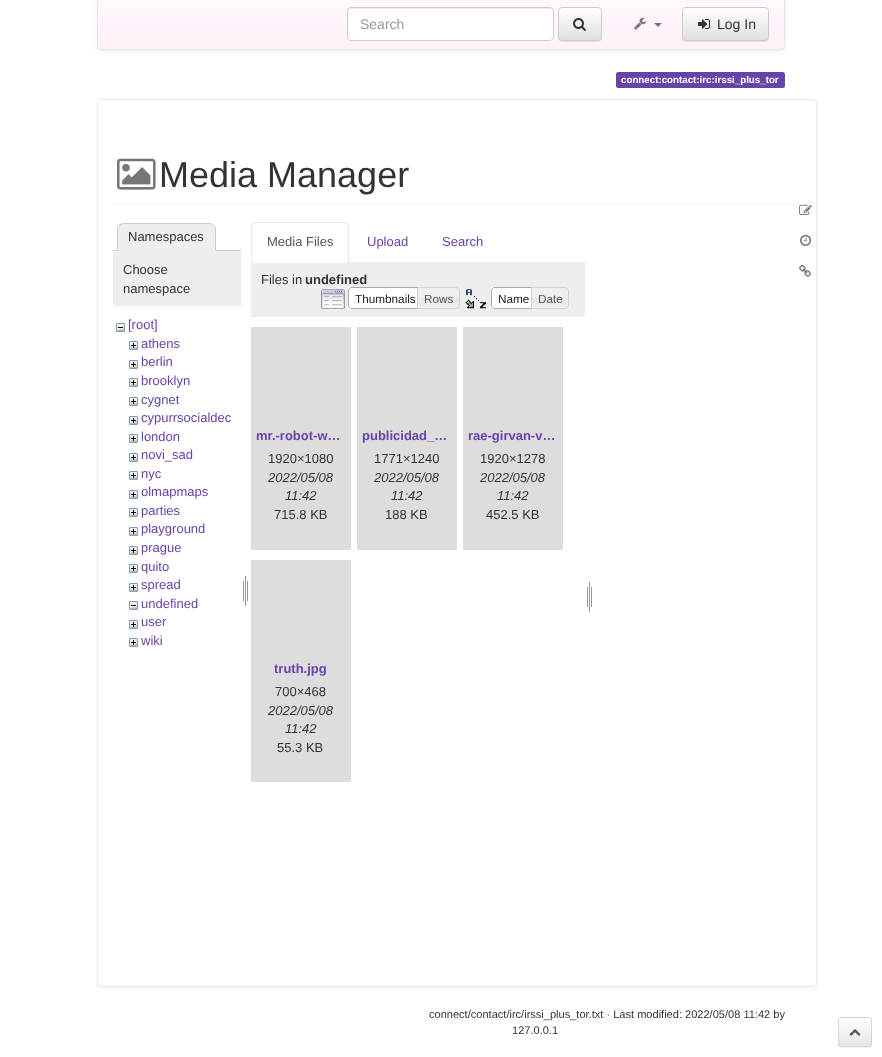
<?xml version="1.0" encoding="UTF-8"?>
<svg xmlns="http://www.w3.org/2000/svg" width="882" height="1057">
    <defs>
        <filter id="blur1" x="-50%" y="-200%" width="200%" height="500%"><feGaussianBlur stdDeviation="2.5"/></filter>
        <clipPath id="clip1"><rect x="97" y="-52" width="688" height="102" rx="4"/></clipPath>
        <linearGradient id="g1" gradientUnits="userSpaceOnUse" x1="441" y1="-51" x2="441" y2="49"><stop offset="0" stop-color="#FFFFFF"/><stop offset="1" stop-color="#FFF1F9"/></linearGradient>
        <filter id="blur2" x="-50%" y="-200%" width="200%" height="500%"><feGaussianBlur stdDeviation="0.5"/></filter>
        <clipPath id="clip2"><rect x="558" y="7" width="44" height="34" rx="4"/></clipPath>
        <linearGradient id="g2" gradientUnits="userSpaceOnUse" x1="580" y1="8" x2="580" y2="40"><stop offset="0" stop-color="#FFFFFF"/><stop offset="1" stop-color="#E0E0E0"/></linearGradient>
        <clipPath id="clip3"><rect x="682" y="7" width="87" height="34" rx="4"/></clipPath>
        <linearGradient id="g3" gradientUnits="userSpaceOnUse" x1="726" y1="8" x2="726" y2="40"><stop offset="0" stop-color="#FFFFFF"/><stop offset="1" stop-color="#E0E0E0"/></linearGradient>
        <filter id="blur3" x="-50%" y="-200%" width="200%" height="500%"><feGaussianBlur stdDeviation="1"/></filter>
        <clipPath id="clip4"><rect x="838" y="1017" width="34" height="30" rx="3"/></clipPath>
        <linearGradient id="g4" gradientUnits="userSpaceOnUse" x1="855" y1="1018" x2="855" y2="1046"><stop offset="0" stop-color="#FFFFFF"/><stop offset="1" stop-color="#E6E6E6"/></linearGradient>
    </defs>
    <rect width="100%" height="100%" fill="#FFFFFF"/>
    <rect x="97" y="-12" width="688" height="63" rx="4" fill="#000000" fill-opacity="0.07" filter="url(#blur1)"/>
    <g clip-path="url(#clip1)">
        <rect x="97" y="0" width="688" height="49" fill="url(#g1)"/>
    </g>
    <rect x="97.5" y="-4.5" width="687" height="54" rx="3.5" fill="none" stroke="#E7E7E7"/>
    <rect x="347" y="7" width="207" height="34" rx="4" fill="#FFFFFF"/>
    <path d="M 351 9 H 550 C 552 9 553 10 553 12 C 553 10 552 8 550 8 H 351 C 349 8 348 10 348 12 C 348 10 349 9 351 9 Z" fill="#ECECEC"/>
    <rect x="347.5" y="7.5" width="206" height="33" rx="3.5" fill="none" stroke="#CCCCCC"/>
    <text x="360" y="29" font-family="Liberation Sans" font-size="14" fill="#999999">Search</text>
    <rect x="558" y="8" width="44" height="34" rx="4" fill="#000000" fill-opacity="0.07" filter="url(#blur2)"/>
    <g clip-path="url(#clip2)">
        <rect x="558" y="8" width="44" height="32" fill="url(#g2)"/>
    </g>
    <rect x="558.5" y="7.5" width="43" height="33" rx="3.5" fill="none" stroke="#CCCCCC"/>
    <image x="573" y="18" width="13" height="13" href="img_01.png"/>
    <image x="634" y="17" width="12" height="13" href="img_02.png"/>
    <path d="M 654 23 H 662 L 658 27 Z" fill="#777777"/>
    <rect x="682" y="8" width="87" height="34" rx="4" fill="#000000" fill-opacity="0.07" filter="url(#blur2)"/>
    <g clip-path="url(#clip3)">
        <rect x="682" y="8" width="87" height="32" fill="url(#g3)"/>
    </g>
    <rect x="682.5" y="7.5" width="86" height="33" rx="3.5" fill="none" stroke="#CCCCCC"/>
    <image x="698" y="19" width="12" height="10" href="img_03.png"/>
    <text x="717" y="29" font-family="Liberation Sans" font-size="14" fill="#333333">Log In</text>
    <rect x="616" y="72" width="169" height="16" rx="2.5" fill="#6644AA"/>
    <text x="621" y="83" font-family="Liberation Sans" font-size="9.75" font-weight="700" fill="#FFFFFF">connect:contact:irc:irssi_plus_tor</text>
    <rect x="97" y="100" width="720" height="888" rx="4" fill="#000000" fill-opacity="0.05" filter="url(#blur3)"/>
    <rect x="97.5" y="99.5" width="719" height="887" rx="3.5" fill="#FFFFFF" stroke="#F8E0F0"/>
    <rect x="113" y="203" width="688" height="1" fill="#FFF0F9"/>
    <image x="117" y="158" width="39" height="32" href="img_04.png"/>
    <text x="159" y="187" font-family="Liberation Sans" font-size="36" fill="#333333">Media Manager</text>
    <rect x="113" y="250" width="128" height="1" fill="#CCCCCC"/>
    <path d="M 124 223 H 209 C 213 223 216 226 216 230 V 251 H 117 V 230 C 117 226 120 223 124 223 Z" fill="#EEEEEE"/>
    <path d="M 124 223 C 122 223 120 224 119 225 L 120 226 L 123 224 H 211 L 214 225 C 213 224 211 223 210 223 Z" fill="#CCCCCC"/>
    <path d="M 216 251 V 230 C 216 228 215 226 214 225 L 213.5 225.5 C 214.5 226.5 215 228 215 230 V 250 Z" fill="#CCCCCC"/>
    <path d="M 216 251 L 215 250 H 118 L 117 251 Z" fill="#EEEEEE"/>
    <path d="M 117 251 L 118 250 V 230 C 118 228 118.5 226.5 119.5 225.5 L 119 225 C 118 226 117 228 117 230 Z" fill="#CCCCCC"/>
    <text x="128" y="241" font-family="Liberation Sans" font-size="13" fill="#333333">Namespaces</text>
    <rect x="113" y="251" width="128" height="55" fill="#EEEEEE"/>
    <text font-family="Liberation Sans" font-size="13" fill="#333333">
        <tspan x="123" y="274">Choose</tspan>
        <tspan x="123" y="293">namespace</tspan>
    </text>
    <image x="116" y="323" width="9" height="9" href="img_05.png"/>
    <text x="128" y="329" font-family="Liberation Sans" font-size="13" fill="#6644AA">[root]</text>
    <image x="129" y="341" width="9" height="9" href="img_06.png"/>
    <text x="141" y="348" font-family="Liberation Sans" font-size="13" fill="#6644AA">athens</text>
    <image x="129" y="360" width="9" height="9" href="img_06.png"/>
    <text x="141" y="366" font-family="Liberation Sans" font-size="13" fill="#6644AA">berlin</text>
    <image x="129" y="378" width="9" height="9" href="img_06.png"/>
    <text x="141" y="385" font-family="Liberation Sans" font-size="13" fill="#6644AA">brooklyn</text>
    <image x="129" y="397" width="9" height="9" href="img_06.png"/>
    <text x="141" y="404" font-family="Liberation Sans" font-size="13" fill="#6644AA">cygnet</text>
    <image x="129" y="416" width="9" height="9" href="img_06.png"/>
    <text x="141" y="422" font-family="Liberation Sans" font-size="13" fill="#6644AA">cypurrsocialdec</text>
    <image x="129" y="434" width="9" height="9" href="img_06.png"/>
    <text x="141" y="441" font-family="Liberation Sans" font-size="13" fill="#6644AA">london</text>
    <image x="129" y="453" width="9" height="9" href="img_06.png"/>
    <text x="141" y="459" font-family="Liberation Sans" font-size="13" fill="#6644AA">novi_sad</text>
    <image x="129" y="471" width="9" height="9" href="img_06.png"/>
    <text x="141" y="478" font-family="Liberation Sans" font-size="13" fill="#6644AA">nyc</text>
    <image x="129" y="490" width="9" height="9" href="img_06.png"/>
    <text x="141" y="496" font-family="Liberation Sans" font-size="13" fill="#6644AA">olmapmaps</text>
    <image x="129" y="508" width="9" height="9" href="img_06.png"/>
    <text x="141" y="515" font-family="Liberation Sans" font-size="13" fill="#6644AA">parties</text>
    <image x="129" y="527" width="9" height="9" href="img_06.png"/>
    <text x="141" y="533" font-family="Liberation Sans" font-size="13" fill="#6644AA">playground</text>
    <image x="129" y="546" width="9" height="9" href="img_06.png"/>
    <text x="141" y="552" font-family="Liberation Sans" font-size="13" fill="#6644AA">prague</text>
    <image x="129" y="564" width="9" height="9" href="img_06.png"/>
    <text x="141" y="571" font-family="Liberation Sans" font-size="13" fill="#6644AA">quito</text>
    <image x="129" y="583" width="9" height="9" href="img_06.png"/>
    <text x="141" y="589" font-family="Liberation Sans" font-size="13" fill="#6644AA">spread</text>
    <image x="129" y="601" width="9" height="9" href="img_05.png"/>
    <text x="141" y="608" font-family="Liberation Sans" font-size="13" fill="#6644AA">undefined</text>
    <image x="129" y="620" width="9" height="9" href="img_06.png"/>
    <text x="141" y="626" font-family="Liberation Sans" font-size="13" fill="#6644AA">user</text>
    <image x="129" y="638" width="9" height="9" href="img_06.png"/>
    <text x="141" y="645" font-family="Liberation Sans" font-size="13" fill="#6644AA">wiki</text>
    <image x="243" y="575" width="5" height="31" href="img_07.png"/>
    <rect x="349" y="262" width="236" height="1" fill="#F8E0F0"/>
    <path d="M 255 222 L 252 223 L 253 224 L 255 223 H 345 L 347 224 L 348 223 L 345 222 Z" fill="#F8E0F0"/>
    <path d="M 349 263 V 226 C 349 225 348.5 224 348 223 L 347 224 C 348 224 348 225 348 226 V 262 Z" fill="#F8E0F0"/>
    <path d="M 251 263 L 252 262 V 226 C 252 225 252 224 253 224 L 252 223 C 251.5 224 251 225 251 226 Z" fill="#F8E0F0"/>
    <text x="267" y="246" font-family="Liberation Sans" font-size="13" fill="#555555">Media Files</text>
    <text x="367" y="246" font-family="Liberation Sans" font-size="13" fill="#6644AA">Upload</text>
    <text x="442" y="246" font-family="Liberation Sans" font-size="13" fill="#6644AA">Search</text>
    <rect x="251" y="263" width="334" height="54" fill="#EEEEEE"/>
    <text x="261" y="284" font-family="Liberation Sans" font-size="13" fill="#333333">Files in</text>
    <text x="305" y="284" font-family="Liberation Sans" font-size="13" font-weight="700" fill="#333333">undefined</text>
    <image x="321" y="289" width="24" height="20" href="img_08.png"/>
    <rect x="348" y="287" width="69" height="22" fill="#FFFFFF"/>
    <path d="M 352 287.5 H 421.5 V 308.5 H 352 C 350 308.5 348.5 307 348.5 305 V 291 C 348.5 289 350 287.5 352 287.5 Z" fill="none" stroke="#AAAAAA"/>
    <text x="355" y="303" font-family="Liberation Sans" font-size="11.75" fill="#212121">Thumbnails</text>
    <image x="418" y="287" width="42" height="22" href="img_09.png"/>
    <path d="M 417.5 287.5 H 456 C 458 287.5 459.5 289 459.5 291 V 305 C 459.5 307 458 308.5 456 308.5 H 417.5 Z" fill="none" stroke="#D3D3D3"/>
    <text x="424" y="303" font-family="Liberation Sans" font-size="11.75" fill="#555555">Rows</text>
    <image x="465" y="289" width="21" height="20" href="img_10.png"/>
    <rect x="491" y="287" width="40" height="22" fill="#FFFFFF"/>
    <path d="M 495 287.5 H 535.5 V 308.5 H 495 C 493 308.5 491.5 307 491.5 305 V 291 C 491.5 289 493 287.5 495 287.5 Z" fill="none" stroke="#AAAAAA"/>
    <text x="498" y="303" font-family="Liberation Sans" font-size="11.75" fill="#212121">Name</text>
    <image x="532" y="287" width="37" height="22" href="img_11.png"/>
    <path d="M 531.5 287.5 H 565 C 567 287.5 568.5 289 568.5 291 V 305 C 568.5 307 567 308.5 565 308.5 H 531.5 Z" fill="none" stroke="#D3D3D3"/>
    <text x="538" y="303" font-family="Liberation Sans" font-size="11.75" fill="#555555">Date</text>
    <rect x="251" y="327" width="100" height="223" fill="#DDDDDD"/>
    <text x="256" y="440" font-family="Liberation Sans" font-size="13" font-weight="700" fill="#6644AA">mr.-robot-w…</text>
    <text x="268" y="463" font-family="Liberation Sans" font-size="13" fill="#333333">1920×1080</text>
    <text x="268" y="482" font-family="Liberation Sans" font-size="13" font-style="italic" fill="#333333">2022/05/08</text>
    <text x="285" y="500" font-family="Liberation Sans" font-size="13" font-style="italic" fill="#333333">11:42</text>
    <text x="274" y="519" font-family="Liberation Sans" font-size="13" fill="#333333">715.8 KB</text>
    <rect x="357" y="327" width="100" height="223" fill="#DDDDDD"/>
    <text x="362" y="440" font-family="Liberation Sans" font-size="13" font-weight="700" fill="#6644AA">publicidad_…</text>
    <text x="374" y="463" font-family="Liberation Sans" font-size="13" fill="#333333">1771×1240</text>
    <text x="374" y="482" font-family="Liberation Sans" font-size="13" font-style="italic" fill="#333333">2022/05/08</text>
    <text x="391" y="500" font-family="Liberation Sans" font-size="13" font-style="italic" fill="#333333">11:42</text>
    <text x="385" y="519" font-family="Liberation Sans" font-size="13" fill="#333333">188 KB</text>
    <rect x="463" y="327" width="100" height="223" fill="#DDDDDD"/>
    <text x="468" y="440" font-family="Liberation Sans" font-size="13" font-weight="700" fill="#6644AA">rae-girvan-v…</text>
    <text x="480" y="463" font-family="Liberation Sans" font-size="13" fill="#333333">1920×1278</text>
    <text x="480" y="482" font-family="Liberation Sans" font-size="13" font-style="italic" fill="#333333">2022/05/08</text>
    <text x="497" y="500" font-family="Liberation Sans" font-size="13" font-style="italic" fill="#333333">11:42</text>
    <text x="486" y="519" font-family="Liberation Sans" font-size="13" fill="#333333">452.5 KB</text>
    <rect x="251" y="560" width="100" height="222" fill="#DDDDDD"/>
    <text x="274" y="673" font-family="Liberation Sans" font-size="13" font-weight="700" fill="#6644AA">truth.jpg</text>
    <text x="275" y="696" font-family="Liberation Sans" font-size="13" fill="#333333">700×468</text>
    <text x="268" y="715" font-family="Liberation Sans" font-size="13" font-style="italic" fill="#333333">2022/05/08</text>
    <text x="285" y="733" font-family="Liberation Sans" font-size="13" font-style="italic" fill="#333333">11:42</text>
    <text x="277" y="752" font-family="Liberation Sans" font-size="13" fill="#333333">55.3 KB</text>
    <image x="587" y="581" width="5" height="31" href="img_07.png"/>
    <image x="799" y="204" width="13" height="11" href="img_12.png"/>
    <image x="800" y="234" width="12" height="12" href="img_13.png"/>
    <image x="799" y="265" width="12" height="12" href="img_14.png"/>
    <text x="429" y="1018" font-family="Liberation Sans" font-size="11.05" fill="#333333">connect/contact/irc/irssi_plus_tor.txt · Last modified: 2022/05/08 11:42 by</text>
    <text x="512" y="1034" font-family="Liberation Sans" font-size="11.05" fill="#333333">127.0.0.1</text>
    <rect x="838" y="1018" width="34" height="30" rx="3" fill="#333333" fill-opacity="0.07" filter="url(#blur2)"/>
    <g clip-path="url(#clip4)">
        <rect x="838" y="1018" width="34" height="28" fill="url(#g4)"/>
    </g>
    <rect x="838.5" y="1017.5" width="33" height="29" rx="2.5" fill="none" stroke="#D6D6D6"/>
    <image x="849" y="1029" width="12" height="7" href="img_15.png"/>
</svg>
